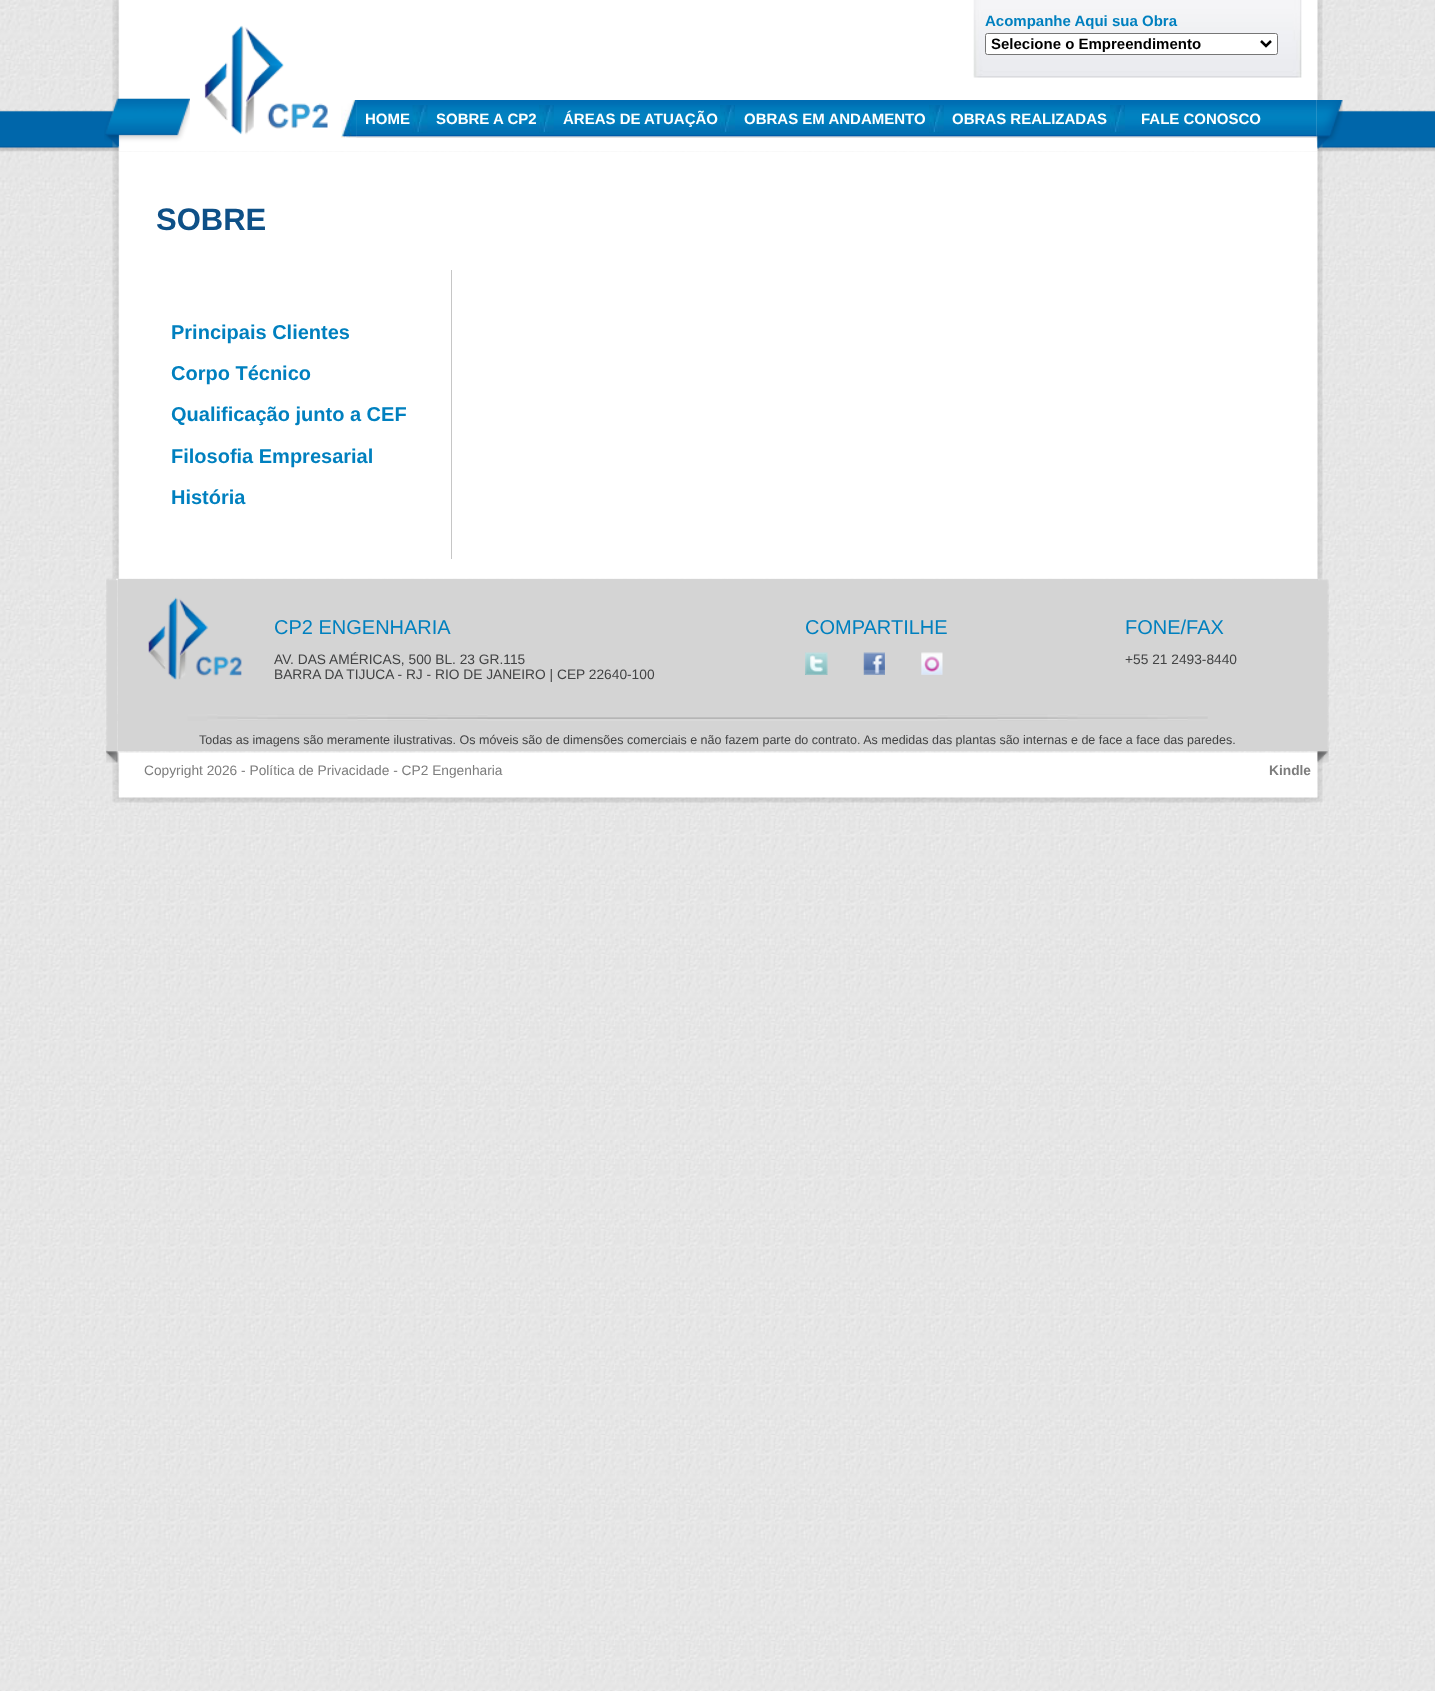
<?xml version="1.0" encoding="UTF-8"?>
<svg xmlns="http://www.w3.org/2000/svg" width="1435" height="1691">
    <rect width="100%" height="100%" fill="#FFFFFF"/>
    <image x="0" y="0" width="1435" height="1691" href="img_01.png"/>
    <image x="0" y="110" width="1435" height="42" href="img_02.png"/>
    <image x="112" y="0" width="1211" height="152" href="img_03.png"/>
    <image x="104" y="98" width="86" height="49" href="img_04.png"/>
    <image x="204" y="25" width="124" height="110" href="img_05.png"/>
    <image x="973" y="0" width="329" height="78" href="img_06.png"/>
    <text x="985" y="26" font-family="Liberation Sans" font-size="15" font-weight="700" fill="#0080BF">Acompanhe Aqui sua Obra</text>
    <rect x="985.5" y="33.5" width="292" height="21" rx="2" fill="#FFFFFF" stroke="#767676"/>
    <path d="M 1261 41 L 1266 46 L 1271 41" fill="none" stroke="#000000" stroke-width="2.5"/>
    <text x="991" y="49" font-family="Liberation Sans" font-size="15" font-weight="700" fill="#000000">Selecione o Empreendimento</text>
    <image x="341" y="100" width="16" height="38" href="img_08.png"/>
    <image x="356" y="100" width="961" height="38" href="img_09.png"/>
    <image x="356" y="100" width="961" height="38" href="img_10.png"/>
    <image x="1316" y="100" width="27" height="49" href="img_07.png"/>
    <image x="412" y="105" width="16" height="28" href="img_11.png"/>
    <text x="365" y="124" font-family="Liberation Sans" font-size="15" font-weight="700" fill="#FFFFFF">HOME</text>
    <image x="539" y="105" width="15" height="28" href="img_12.png"/>
    <text x="436" y="124" font-family="Liberation Sans" font-size="15" font-weight="700" fill="#FFFFFF">SOBRE A CP2</text>
    <image x="720" y="105" width="15" height="28" href="img_13.png"/>
    <text x="563" y="124" font-family="Liberation Sans" font-size="15" font-weight="700" fill="#FFFFFF">ÁREAS DE ATUAÇÃO</text>
    <image x="929" y="105" width="15" height="28" href="img_14.png"/>
    <text x="744" y="124" font-family="Liberation Sans" font-size="15" font-weight="700" fill="#FFFFFF">OBRAS EM ANDAMENTO</text>
    <image x="1110" y="105" width="15" height="28" href="img_13.png"/>
    <text x="952" y="124" font-family="Liberation Sans" font-size="15" font-weight="700" fill="#FFFFFF">OBRAS REALIZADAS</text>
    <text x="1141" y="124" font-family="Liberation Sans" font-size="15" font-weight="700" fill="#FFFFFF">FALE CONOSCO</text>
    <image x="112" y="151" width="1211" height="428" href="img_15.png"/>
    <text x="156" y="230" font-family="Liberation Sans" font-size="31" font-weight="700" fill="#0E5087">SOBRE</text>
    <rect x="451" y="270" width="1" height="289" fill="#C6C6C6"/>
    <text x="171" y="339" font-family="Liberation Sans" font-size="20" font-weight="700" fill="#0080BF">Principais Clientes</text>
    <text x="171" y="380" font-family="Liberation Sans" font-size="20" font-weight="700" fill="#0080BF">Corpo Técnico</text>
    <text x="171" y="421" font-family="Liberation Sans" font-size="20" font-weight="700" fill="#0080BF">Qualificação junto a CEF</text>
    <text x="171" y="463" font-family="Liberation Sans" font-size="20" font-weight="700" fill="#0080BF">Filosofia Empresarial</text>
    <text x="171" y="504" font-family="Liberation Sans" font-size="20" font-weight="700" fill="#0080BF">História</text>
    <image x="112" y="752" width="1211" height="38" href="img_23.png"/>
    <image x="106" y="578" width="12" height="185" href="img_16.png"/>
    <rect x="118" y="579" width="1200" height="172" fill="#D4D4D4"/>
    <image x="148" y="597" width="94" height="83" href="img_17.png"/>
    <text x="274" y="634" font-family="Liberation Sans" font-size="20" fill="#0080BF">CP2 ENGENHARIA</text>
    <text font-family="Liberation Sans" font-size="13.75" fill="#424344">
        <tspan x="274" y="664">AV. DAS AMÉRICAS, 500 BL. 23 GR.115</tspan>
        <tspan x="274" y="679">BARRA DA TIJUCA - RJ - RIO DE JANEIRO | CEP 22640-100</tspan>
    </text>
    <text x="805" y="634" font-family="Liberation Sans" font-size="20" fill="#0080BF">COMPARTILHE</text>
    <image x="805" y="652" width="23" height="23" href="img_18.png"/>
    <image x="863" y="652" width="22" height="23" href="img_19.png"/>
    <image x="921" y="652" width="22" height="23" href="img_20.png"/>
    <text x="1125" y="634" font-family="Liberation Sans" font-size="20" fill="#0080BF">FONE/FAX</text>
    <text x="1125" y="664" font-family="Liberation Sans" font-size="13.75" fill="#424344">+55 21 2493-8440</text>
    <image x="117" y="714" width="1091" height="7" href="img_21.png"/>
    <text x="199" y="744" font-family="Liberation Sans" font-size="12.5" fill="#424344">Todas as imagens são meramente ilustrativas. Os móveis são de dimensões comerciais e não fazem parte do contrato. As medidas das plantas são internas e de face a face das paredes.</text>
    <image x="1317" y="579" width="12" height="184" href="img_22.png"/>
    <text x="144" y="775" font-family="Liberation Sans" font-size="13.75" fill="#7D7D7D">Copyright 2026 - Política de Privacidade - CP2 Engenharia</text>
    <text x="1269" y="775" font-family="Liberation Sans" font-size="13.75" font-weight="700" fill="#7D7D7D">Kindle</text>
    <image x="112" y="790" width="1211" height="13" href="img_24.png"/>
</svg>
